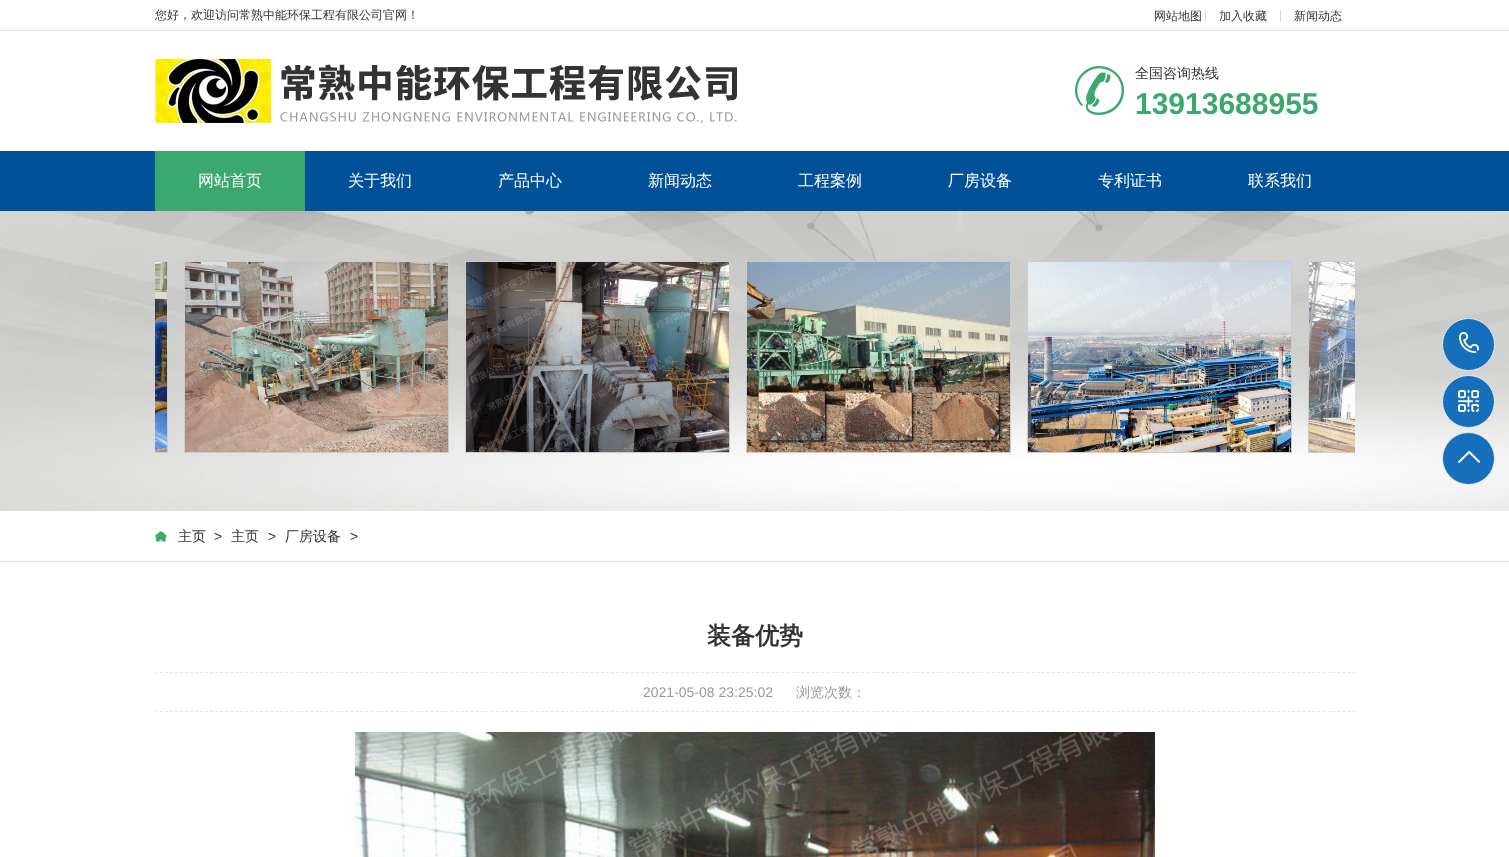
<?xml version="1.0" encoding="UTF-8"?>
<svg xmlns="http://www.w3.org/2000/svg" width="1509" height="857">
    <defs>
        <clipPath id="clip1"><rect x="155" y="211" width="1200" height="260"/></clipPath>
    </defs>
    <rect width="100%" height="100%" fill="#FFFFFF"/>
    <rect x="0" y="30" width="1509" height="1" fill="#E5E5E5"/>
    <text x="155" y="19" font-family="WenQuanYi Zen Hei" font-size="12" font-weight="500" fill="#333333">您好，欢迎访问常熟中能环保工程有限公司官网！</text>
    <rect x="1205" y="10" width="1" height="12" fill="#D8D8D8"/>
    <text x="1154" y="20" font-family="WenQuanYi Zen Hei" font-size="12" font-weight="500" fill="#333333">网站地图</text>
    <rect x="1280" y="10" width="1" height="12" fill="#D8D8D8"/>
    <text x="1219" y="20" font-family="WenQuanYi Zen Hei" font-size="12" font-weight="500" fill="#333333">加入收藏</text>
    <text x="1294" y="20" font-family="WenQuanYi Zen Hei" font-size="12" font-weight="500" fill="#333333">新闻动态</text>
    <image x="155" y="59" width="582" height="65" href="img_01.png"/>
    <image x="1075" y="66" width="49" height="49" href="img_02.png"/>
    <text x="1135" y="78" font-family="WenQuanYi Zen Hei" font-size="14" font-weight="500" fill="#333333">全国咨询热线</text>
    <text x="1135" y="114" font-family="Liberation Sans" font-size="30" font-weight="700" fill="#3BA86F">13913688955</text>
    <rect x="0" y="151" width="1509" height="60" fill="#005197"/>
    <rect x="155" y="151" width="150" height="60" fill="#3BA86F"/>
    <text x="198" y="186" font-family="WenQuanYi Zen Hei" font-size="16" font-weight="500" fill="#FFFFFF">网站首页</text>
    <text x="348" y="186" font-family="WenQuanYi Zen Hei" font-size="16" font-weight="500" fill="#FFFFFF">关于我们</text>
    <text x="498" y="186" font-family="WenQuanYi Zen Hei" font-size="16" font-weight="500" fill="#FFFFFF">产品中心</text>
    <text x="648" y="186" font-family="WenQuanYi Zen Hei" font-size="16" font-weight="500" fill="#FFFFFF">新闻动态</text>
    <text x="798" y="186" font-family="WenQuanYi Zen Hei" font-size="16" font-weight="500" fill="#FFFFFF">工程案例</text>
    <text x="948" y="186" font-family="WenQuanYi Zen Hei" font-size="16" font-weight="500" fill="#FFFFFF">厂房设备</text>
    <text x="1098" y="186" font-family="WenQuanYi Zen Hei" font-size="16" font-weight="500" fill="#FFFFFF">专利证书</text>
    <text x="1248" y="186" font-family="WenQuanYi Zen Hei" font-size="16" font-weight="500" fill="#FFFFFF">联系我们</text>
    <image x="0" y="211" width="1509" height="300" href="img_03.png"/>
    <g clip-path="url(#clip1)">
        <rect x="-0.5" y="261.5" width="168" height="191" fill="none" stroke="#CCCCCC"/>
    </g>
    <image x="155" y="262" width="12" height="190" href="img_04.png"/>
    <rect x="184.5" y="261.5" width="264" height="191" fill="none" stroke="#CCCCCC"/>
    <image x="185" y="262" width="263" height="190" href="img_05.png"/>
    <rect x="465.5" y="261.5" width="264" height="191" fill="none" stroke="#CCCCCC"/>
    <image x="466" y="262" width="263" height="190" href="img_06.png"/>
    <rect x="746.5" y="261.5" width="264" height="191" fill="none" stroke="#CCCCCC"/>
    <image x="747" y="262" width="263" height="190" href="img_07.png"/>
    <rect x="1027.5" y="261.5" width="264" height="191" fill="none" stroke="#CCCCCC"/>
    <image x="1028" y="262" width="263" height="190" href="img_08.png"/>
    <g clip-path="url(#clip1)">
        <rect x="1308.5" y="261.5" width="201" height="191" fill="none" stroke="#CCCCCC"/>
    </g>
    <image x="1309" y="262" width="46" height="190" href="img_09.png"/>
    <circle cx="1468.5" cy="344.5" r="26" fill="#156FBB" stroke="#EBEBEB"/>
    <image x="1459" y="332" width="20" height="21" href="img_10.png"/>
    <circle cx="1468.5" cy="401.5" r="26" fill="#156FBB" stroke="#EBEBEB"/>
    <image x="1458" y="390" width="21" height="22" href="img_11.png"/>
    <circle cx="1468.5" cy="458.5" r="26" fill="#156FBB" stroke="#EBEBEB"/>
    <image x="1458" y="451" width="22" height="12" href="img_12.png"/>
    <rect x="0" y="561" width="1509" height="1" fill="#DEDEDE"/>
    <image x="155" y="531" width="12" height="11" href="img_13.png"/>
    <text x="178" y="541" font-family="WenQuanYi Zen Hei" font-size="14" font-weight="500" fill="#333333">主页</text>
    <text x="214" y="541" font-family="Liberation Sans" font-size="14" fill="#333333">&gt;</text>
    <text x="231" y="541" font-family="WenQuanYi Zen Hei" font-size="14" font-weight="500" fill="#333333">主页</text>
    <text x="268" y="541" font-family="Liberation Sans" font-size="14" fill="#333333">&gt;</text>
    <text x="285" y="541" font-family="WenQuanYi Zen Hei" font-size="14" font-weight="500" fill="#333333">厂房设备</text>
    <text x="350" y="541" font-family="Liberation Sans" font-size="14" fill="#333333">&gt;</text>
    <text x="707" y="644" font-family="WenQuanYi Zen Hei" font-size="24" font-weight="700" fill="#333333">装备优势</text>
    <path d="M 155 672.5 H 1355" fill="none" stroke="#E5E5E5" stroke-dasharray="3 2.01"/>
    <path d="M 155 711.5 H 1355" fill="none" stroke="#E5E5E5" stroke-dasharray="3 2.01"/>
    <text x="643" y="697" font-family="Liberation Sans" font-size="14" fill="#999999">2021-05-08 23:25:02</text>
    <text x="796" y="697" font-family="WenQuanYi Zen Hei" font-size="14" font-weight="500" fill="#999999">浏览次数：</text>
    <image x="355" y="732" width="800" height="125" href="img_14.png"/>
</svg>
